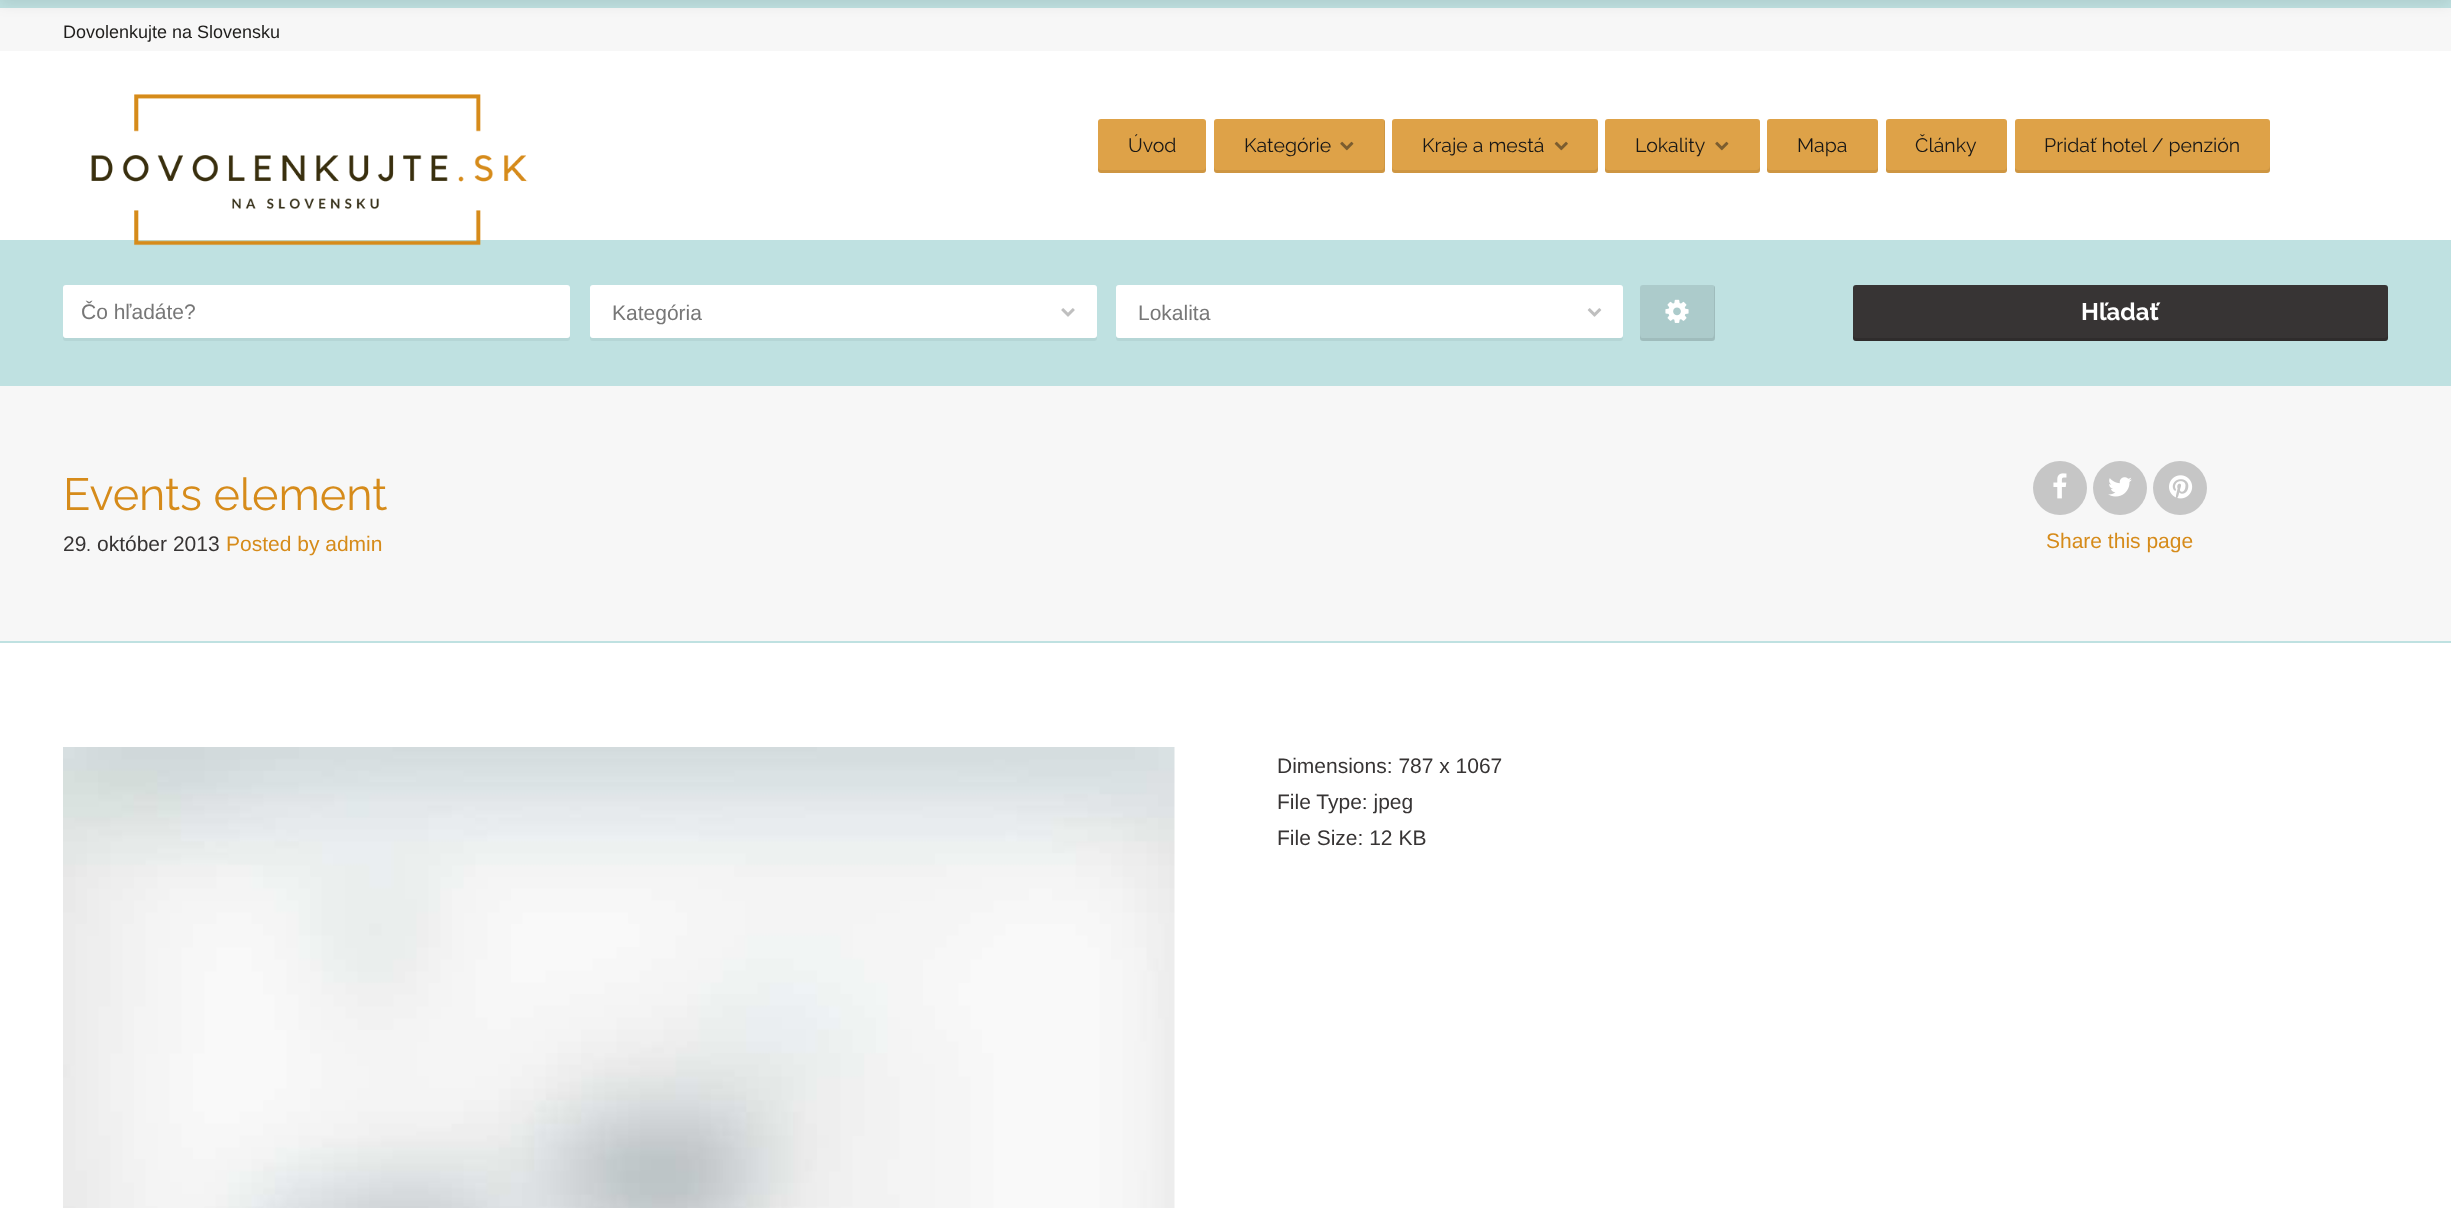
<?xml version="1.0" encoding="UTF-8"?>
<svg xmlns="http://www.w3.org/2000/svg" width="2451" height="1208">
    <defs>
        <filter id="blur1" x="-50%" y="-200%" width="200%" height="500%"><feGaussianBlur stdDeviation="7.5"/></filter>
    </defs>
    <rect width="100%" height="100%" fill="#FFFFFF"/>
    <rect x="0" y="8" width="2451" height="43" fill="#F7F7F7"/>
    <rect x="0" y="0" width="2451" height="8" fill="#BFE1E1"/>
    <rect x="0" y="-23" width="2451" height="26" fill="#000000" fill-opacity="0.1" filter="url(#blur1)"/>
    <text x="63" y="38" font-family="Liberation Sans" font-size="18" fill="#201F1D">Dovolenkujte na Slovensku</text>
    <rect x="0" y="240" width="2451" height="146" fill="#BFE1E1"/>
    <image x="91" y="94" width="437" height="152" href="img_01.png"/>
    <rect x="1098" y="119" width="108" height="54" rx="3" fill="#DEA248"/>
    <path d="M 1098 166 V 170 C 1098 172 1099 173 1101 173 H 1203 C 1205 173 1206 172 1206 170 V 166 C 1206 168 1205 170 1203 170 H 1101 C 1099 170 1098 168 1098 166 Z" fill="#000000" fill-opacity="0.07"/>
    <text x="1128" y="152" font-family="Raleway" font-size="19.5" fill="#181716">Úvod</text>
    <rect x="1214" y="119" width="171" height="54" rx="3" fill="#DEA248"/>
    <path d="M 1214 166 V 170 C 1214 172 1215 173 1217 173 H 1382 C 1384 173 1385 172 1385 170 V 122 C 1385 121 1385 120 1384 120 V 166 C 1384 168 1383 170 1382 170 H 1216 C 1215 170 1214 168 1214 166 Z" fill="#000000" fill-opacity="0.07"/>
    <text x="1244" y="152" font-family="Raleway" font-size="19.5" fill="#181716">Kategórie</text>
    <image x="1340" y="141" width="14" height="10" href="img_02.png"/>
    <rect x="1392" y="119" width="206" height="54" rx="3" fill="#DEA248"/>
    <path d="M 1392 166 V 170 C 1392 172 1393 173 1395 173 H 1595 C 1597 173 1598 172 1598 170 V 166 C 1598 168 1596 170 1594 170 H 1395 C 1393 170 1392 168 1392 166 Z" fill="#000000" fill-opacity="0.07"/>
    <text x="1422" y="152" font-family="Raleway" font-size="19.5" fill="#181716">Kraje a mestá</text>
    <image x="1554" y="141" width="14" height="10" href="img_03.png"/>
    <rect x="1605" y="119" width="155" height="54" rx="3" fill="#DEA248"/>
    <path d="M 1605 166 V 170 C 1605 172 1606 173 1608 173 H 1757 C 1759 173 1760 172 1760 170 V 166 C 1760 168 1758 170 1756 170 H 1608 C 1606 170 1605 168 1605 166 Z" fill="#000000" fill-opacity="0.07"/>
    <text x="1635" y="152" font-family="Raleway" font-size="19.5" fill="#181716">Lokality</text>
    <image x="1715" y="141" width="14" height="10" href="img_02.png"/>
    <rect x="1767" y="119" width="111" height="54" rx="3" fill="#DEA248"/>
    <path d="M 1767 166 V 170 C 1767 172 1768 173 1770 173 H 1875 C 1877 173 1878 172 1878 170 V 166 C 1878 168 1877 170 1875 170 H 1770 C 1768 170 1767 168 1767 166 Z" fill="#000000" fill-opacity="0.07"/>
    <text x="1797" y="152" font-family="Raleway" font-size="19.5" fill="#181716">Mapa</text>
    <rect x="1886" y="119" width="121" height="54" rx="3" fill="#DEA248"/>
    <path d="M 1886 166 V 170 C 1886 172 1887 173 1889 173 H 2004 C 2006 173 2007 172 2007 170 V 166 C 2007 168 2006 170 2004 170 H 1888 C 1887 170 1886 168 1886 166 Z" fill="#000000" fill-opacity="0.07"/>
    <text x="1915" y="152" font-family="Raleway" font-size="19.5" fill="#181716">Články</text>
    <rect x="2015" y="119" width="255" height="54" rx="3" fill="#DEA248"/>
    <path d="M 2015 168 V 170 C 2015 172 2016 173 2018 173 H 2267 C 2269 173 2270 172 2270 170 V 166 C 2270 168 2268 170 2266 170 H 2018 C 2017 170 2016 169 2015 168 Z" fill="#000000" fill-opacity="0.07"/>
    <text x="2044" y="152" font-family="Raleway" font-size="19.5" fill="#181716">Pridať hotel / penzión</text>
    <path d="M 63 334 V 338 C 63 340 64 341 66 341 H 567 C 569 341 570 340 570 338 V 334 C 570 336 569 338 567 338 H 66 C 64 338 63 336 63 334 Z" fill="#B5D6D6"/>
    <rect x="63" y="285" width="507" height="53" rx="3" fill="#FFFFFF"/>
    <text x="81" y="319" font-family="Liberation Sans" font-size="21" fill="#777777">Čo hľadáte?</text>
    <path d="M 590 336 V 338 C 590 340 591 341 593 341 H 1094 C 1096 341 1097 340 1097 338 V 291 L 1096 289 V 334 C 1096 336 1095 338 1094 338 H 592 C 591 338 591 337 590 336 Z" fill="#B5D6D6"/>
    <rect x="590" y="285" width="507" height="53" rx="3" fill="#FFFFFF"/>
    <text x="612" y="320" font-family="Liberation Sans" font-size="21" fill="#777777">Kategória</text>
    <image x="1061" y="308" width="14" height="9" href="img_04.png"/>
    <path d="M 1116 334 V 338 C 1116 340 1117 341 1119 341 H 1620 C 1622 341 1623 340 1623 338 V 334 C 1623 336 1622 338 1620 338 H 1119 C 1117 338 1116 336 1116 334 Z" fill="#B5D6D6"/>
    <rect x="1116" y="285" width="507" height="53" rx="3" fill="#FFFFFF"/>
    <text x="1138" y="320" font-family="Liberation Sans" font-size="21" fill="#777777">Lokalita</text>
    <image x="1587" y="308" width="15" height="9" href="img_05.png"/>
    <rect x="1640" y="285" width="75" height="56" rx="3" fill="#ACCBCB"/>
    <path d="M 1640 334 V 338 C 1640 340 1641 341 1643 341 H 1712 C 1714 341 1715 340 1715 338 V 288 C 1715 287 1715 286 1714 286 V 334 C 1714 336 1713 338 1712 338 H 1642 C 1641 338 1640 336 1640 334 Z" fill="#000000" fill-opacity="0.07"/>
    <image x="1665" y="299" width="24" height="24" href="img_06.png"/>
    <rect x="1853" y="285" width="535" height="56" rx="3" fill="#373434"/>
    <path d="M 1853 336 C 1853 339 1853 341 1856 341 H 2386 C 2389 340 2388 336 2388 334 C 2388 336 2387 338 2385 338 H 1856 C 1855 338 1854 337 1853 336 Z" fill="#000000" fill-opacity="0.07"/>
    <text x="2081" y="320" font-family="Raleway" font-size="24" font-weight="700" fill="#FFFFFF">Hľadať</text>
    <path d="M 1853 336 C 1853 339 1853 341 1856 341 H 2386 C 2389 340 2388 336 2388 334 C 2388 336 2387 338 2385 338 H 1856 C 1855 338 1854 337 1853 336 Z" fill="#000000" fill-opacity="0.07"/>
    <rect x="0" y="386" width="2451" height="255" fill="#F7F7F7"/>
    <rect x="0" y="641" width="2451" height="2" fill="#BFE1E1"/>
    <text x="63" y="510" font-family="Raleway" font-size="45" fill="#D68B1A">Events element</text>
    <text x="63" y="551" font-family="Liberation Sans" font-size="21" fill="#373434">29</text>
    <text x="86" y="551" font-family="Liberation Sans" font-size="18" fill="#373434">.</text>
    <text x="97" y="551" font-family="Liberation Sans" font-size="21" fill="#373434">október 2013</text>
    <text x="226" y="551" font-family="Liberation Sans" font-size="21" fill="#D68B1A">Posted by admin</text>
    <circle cx="2060" cy="488" r="27" fill="#C6C6C6"/>
    <image x="2053" y="473" width="14" height="26" href="img_07.png"/>
    <circle cx="2120" cy="488" r="27" fill="#C6C6C6"/>
    <image x="2108" y="477" width="24" height="20" href="img_08.png"/>
    <circle cx="2180" cy="488" r="27" fill="#C6C6C6"/>
    <image x="2169" y="475" width="24" height="24" href="img_09.png"/>
    <text x="2046" y="548" font-family="Liberation Sans" font-size="21" fill="#D68B1A">Share this page</text>
    <image x="63" y="747" width="1112" height="461" href="img_10.png"/>
    <text font-family="Liberation Sans" font-size="21" fill="#373434">
        <tspan x="1277" y="773">Dimensions: 787 x 1067</tspan>
        <tspan x="1277" y="809">File Type: jpeg</tspan>
        <tspan x="1277" y="845">File Size: 12 KB</tspan>
    </text>
</svg>
